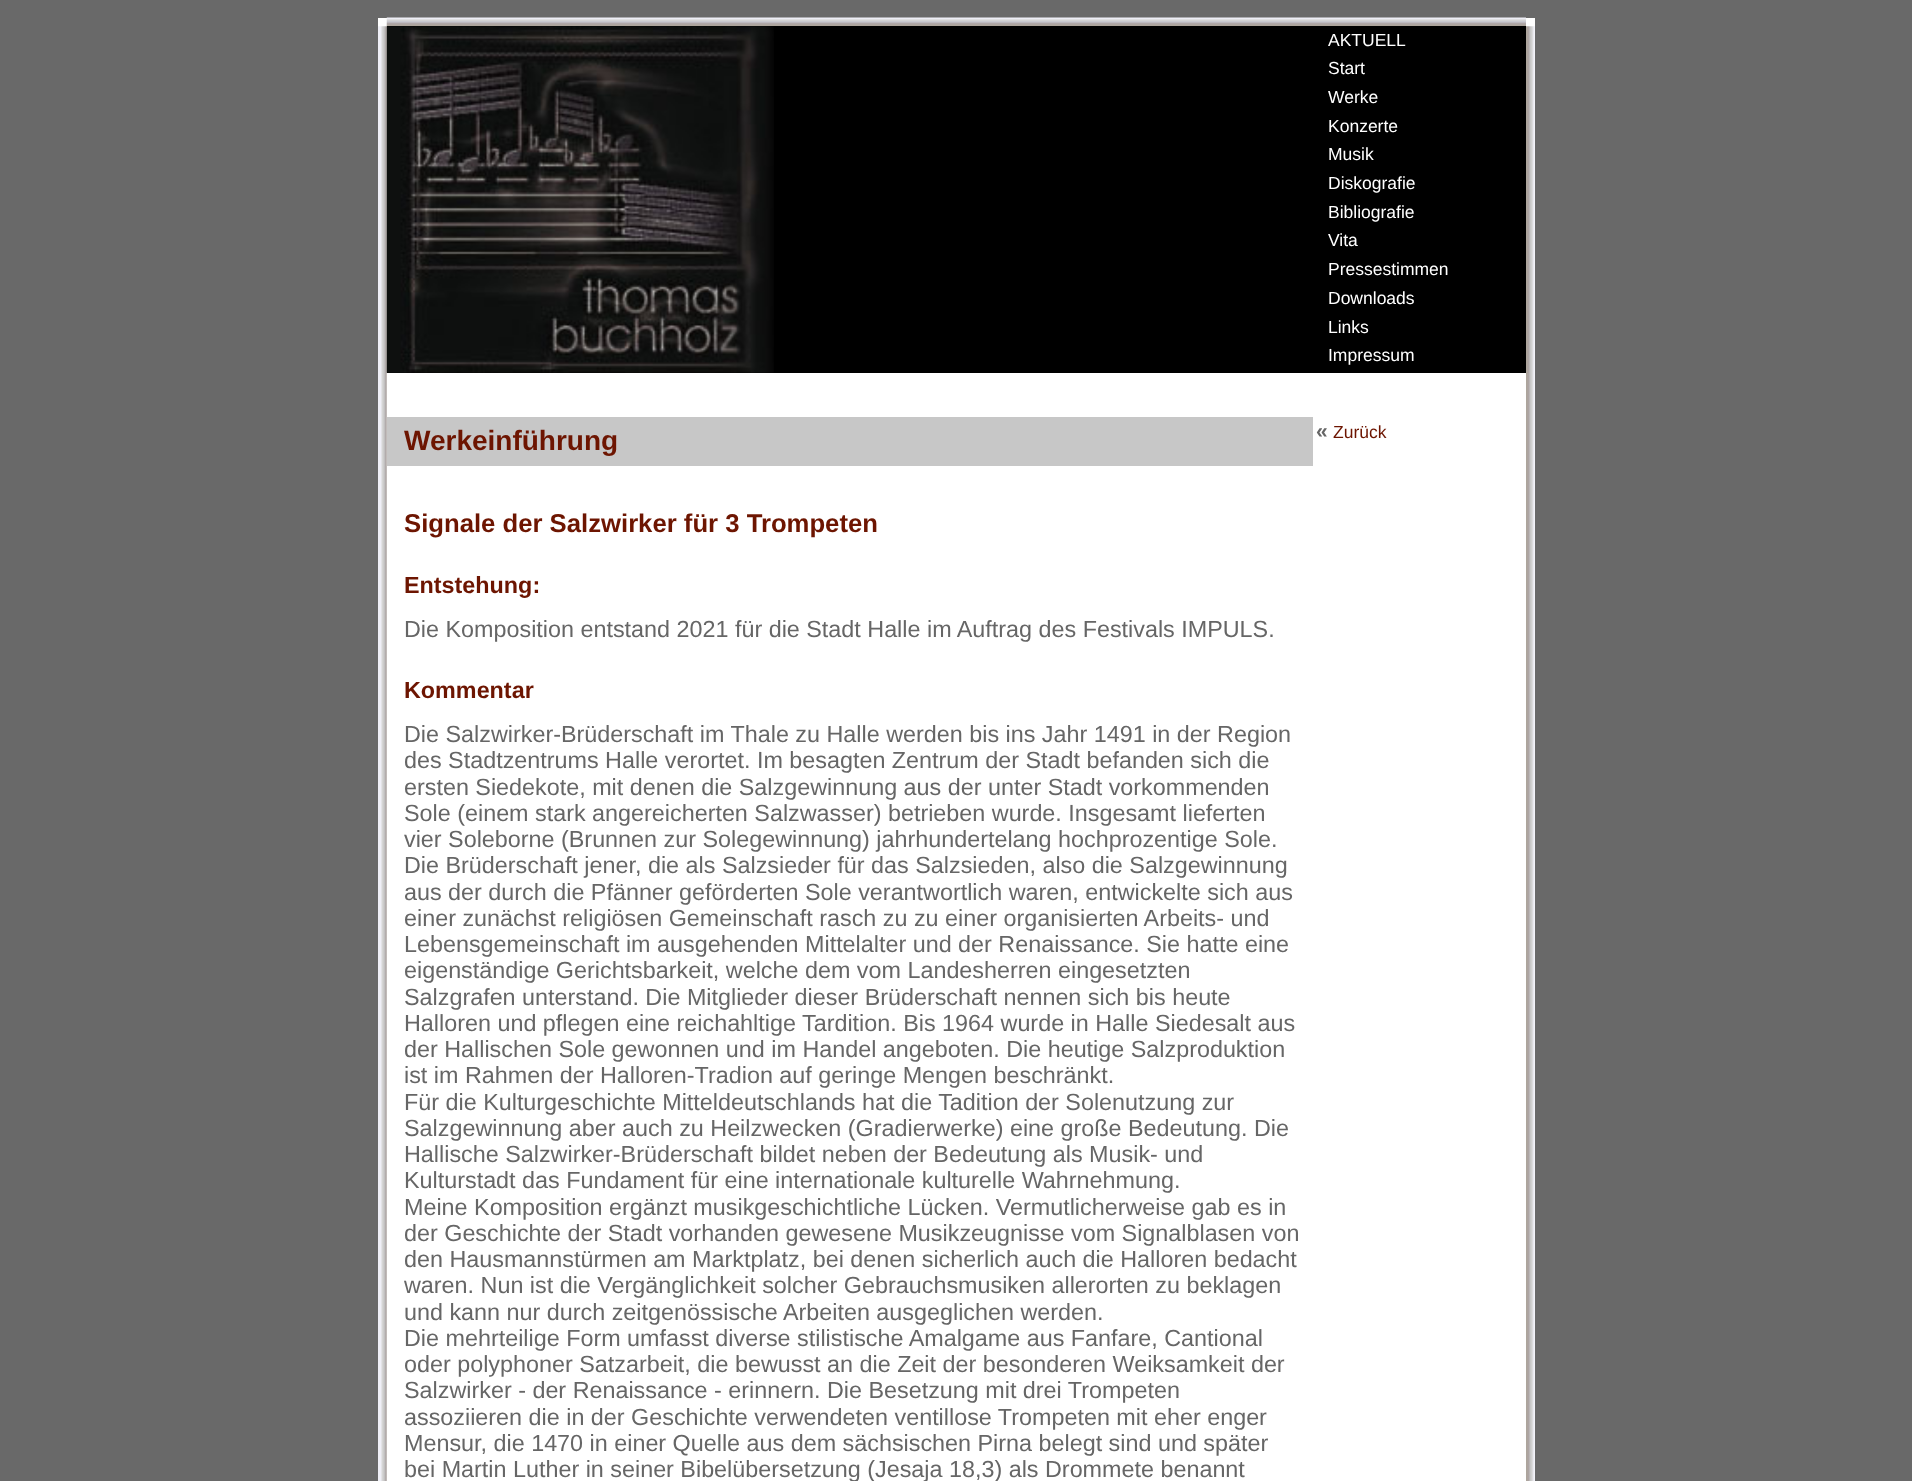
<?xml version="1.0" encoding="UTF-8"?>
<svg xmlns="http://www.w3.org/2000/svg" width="1912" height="1481">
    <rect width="100%" height="100%" fill="#696969"/>
    <rect x="378" y="18" width="1157" height="1463" fill="#FFFFFF"/>
    <image x="386" y="17" width="1140" height="10" href="img_01.png"/>
    <image x="378" y="26" width="9" height="1455" href="img_02.png"/>
    <rect x="387" y="26" width="1139" height="347" fill="#000000"/>
    <image x="386" y="26" width="388" height="347" href="img_03.png"/>
    <text font-family="Liberation Sans" font-size="17.5" fill="#FFFFFF">
        <tspan x="1328" y="46">AKTUELL</tspan>
        <tspan x="1328" y="74">Start</tspan>
        <tspan x="1328" y="103">Werke</tspan>
        <tspan x="1328" y="132">Konzerte</tspan>
        <tspan x="1328" y="160">Musik</tspan>
        <tspan x="1328" y="189">Diskografie</tspan>
        <tspan x="1328" y="218">Bibliografie</tspan>
        <tspan x="1328" y="246">Vita</tspan>
        <tspan x="1328" y="275">Pressestimmen</tspan>
        <tspan x="1328" y="304">Downloads</tspan>
        <tspan x="1328" y="333">Links</tspan>
        <tspan x="1328" y="361">Impressum</tspan>
    </text>
    <rect x="387" y="417" width="926" height="49" fill="#C7C7C7"/>
    <text x="404" y="450" font-family="Liberation Sans" font-size="28" font-weight="700" fill="#6D1501">Werkeinführung</text>
    <text x="404" y="532" font-family="Liberation Sans" font-size="25.7" font-weight="700" fill="#6D1501">Signale der Salzwirker für 3 Trompeten</text>
    <text x="404" y="593" font-family="Liberation Sans" font-size="23.35" font-weight="700" fill="#6D1501">Entstehung:</text>
    <text x="404" y="637" font-family="Liberation Sans" font-size="23.35" fill="#666666">Die Komposition entstand 2021 für die Stadt Halle im Auftrag des Festivals IMPULS.</text>
    <text x="404" y="698" font-family="Liberation Sans" font-size="23.35" font-weight="700" fill="#6D1501">Kommentar</text>
    <text font-family="Liberation Sans" font-size="23.35" fill="#666666">
        <tspan x="404" y="742">Die Salzwirker-Brüderschaft im Thale zu Halle werden bis ins Jahr 1491 in der Region</tspan>
        <tspan x="404" y="768">des Stadtzentrums Halle verortet. Im besagten Zentrum der Stadt befanden sich die</tspan>
        <tspan x="404" y="795">ersten Siedekote, mit denen die Salzgewinnung aus der unter Stadt vorkommenden</tspan>
        <tspan x="404" y="821">Sole (einem stark angereicherten Salzwasser) betrieben wurde. Insgesamt lieferten</tspan>
        <tspan x="404" y="847">vier Soleborne (Brunnen zur Solegewinnung) jahrhundertelang hochprozentige Sole.</tspan>
        <tspan x="404" y="873">Die Brüderschaft jener, die als Salzsieder für das Salzsieden, also die Salzgewinnung</tspan>
        <tspan x="404" y="900">aus der durch die Pfänner geförderten Sole verantwortlich waren, entwickelte sich aus</tspan>
        <tspan x="404" y="926">einer zunächst religiösen Gemeinschaft rasch zu zu einer organisierten Arbeits- und</tspan>
        <tspan x="404" y="952">Lebensgemeinschaft im ausgehenden Mittelalter und der Renaissance. Sie hatte eine</tspan>
        <tspan x="404" y="978">eigenständige Gerichtsbarkeit, welche dem vom Landesherren eingesetzten</tspan>
        <tspan x="404" y="1005">Salzgrafen unterstand. Die Mitglieder dieser Brüderschaft nennen sich bis heute</tspan>
        <tspan x="404" y="1031">Halloren und pflegen eine reichahltige Tardition. Bis 1964 wurde in Halle Siedesalt aus</tspan>
        <tspan x="404" y="1057">der Hallischen Sole gewonnen und im Handel angeboten. Die heutige Salzproduktion</tspan>
        <tspan x="404" y="1083">ist im Rahmen der Halloren-Tradion auf geringe Mengen beschränkt.</tspan>
        <tspan x="404" y="1110">Für die Kulturgeschichte Mitteldeutschlands hat die Tadition der Solenutzung zur</tspan>
        <tspan x="404" y="1136">Salzgewinnung aber auch zu Heilzwecken (Gradierwerke) eine große Bedeutung. Die</tspan>
        <tspan x="404" y="1162">Hallische Salzwirker-Brüderschaft bildet neben der Bedeutung als Musik- und</tspan>
        <tspan x="404" y="1188">Kulturstadt das Fundament für eine internationale kulturelle Wahrnehmung.</tspan>
        <tspan x="404" y="1215">Meine Komposition ergänzt musikgeschichtliche Lücken. Vermutlicherweise gab es in</tspan>
        <tspan x="404" y="1241">der Geschichte der Stadt vorhanden gewesene Musikzeugnisse vom Signalblasen von</tspan>
        <tspan x="404" y="1267">den Hausmannstürmen am Marktplatz, bei denen sicherlich auch die Halloren bedacht</tspan>
        <tspan x="404" y="1293">waren. Nun ist die Vergänglichkeit solcher Gebrauchsmusiken allerorten zu beklagen</tspan>
        <tspan x="404" y="1320">und kann nur durch zeitgenössische Arbeiten ausgeglichen werden.</tspan>
        <tspan x="404" y="1346">Die mehrteilige Form umfasst diverse stilistische Amalgame aus Fanfare, Cantional</tspan>
        <tspan x="404" y="1372">oder polyphoner Satzarbeit, die bewusst an die Zeit der besonderen Weiksamkeit der</tspan>
        <tspan x="404" y="1398">Salzwirker - der Renaissance - erinnern. Die Besetzung mit drei Trompeten</tspan>
        <tspan x="404" y="1425">assoziieren die in der Geschichte verwendeten ventillose Trompeten mit eher enger</tspan>
        <tspan x="404" y="1451">Mensur, die 1470 in einer Quelle aus dem sächsischen Pirna belegt sind und später</tspan>
        <tspan x="404" y="1477">bei Martin Luther in seiner Bibelübersetzung (Jesaja 18,3) als Drommete benannt</tspan>
    </text>
    <text x="1316" y="438" font-family="Liberation Sans" font-size="21" font-weight="700" fill="#666666">«</text>
    <text x="1333" y="438" font-family="Liberation Sans" font-size="17.5" fill="#6D1501">Zurück</text>
    <image x="1526" y="26" width="9" height="1455" href="img_04.png"/>
</svg>
